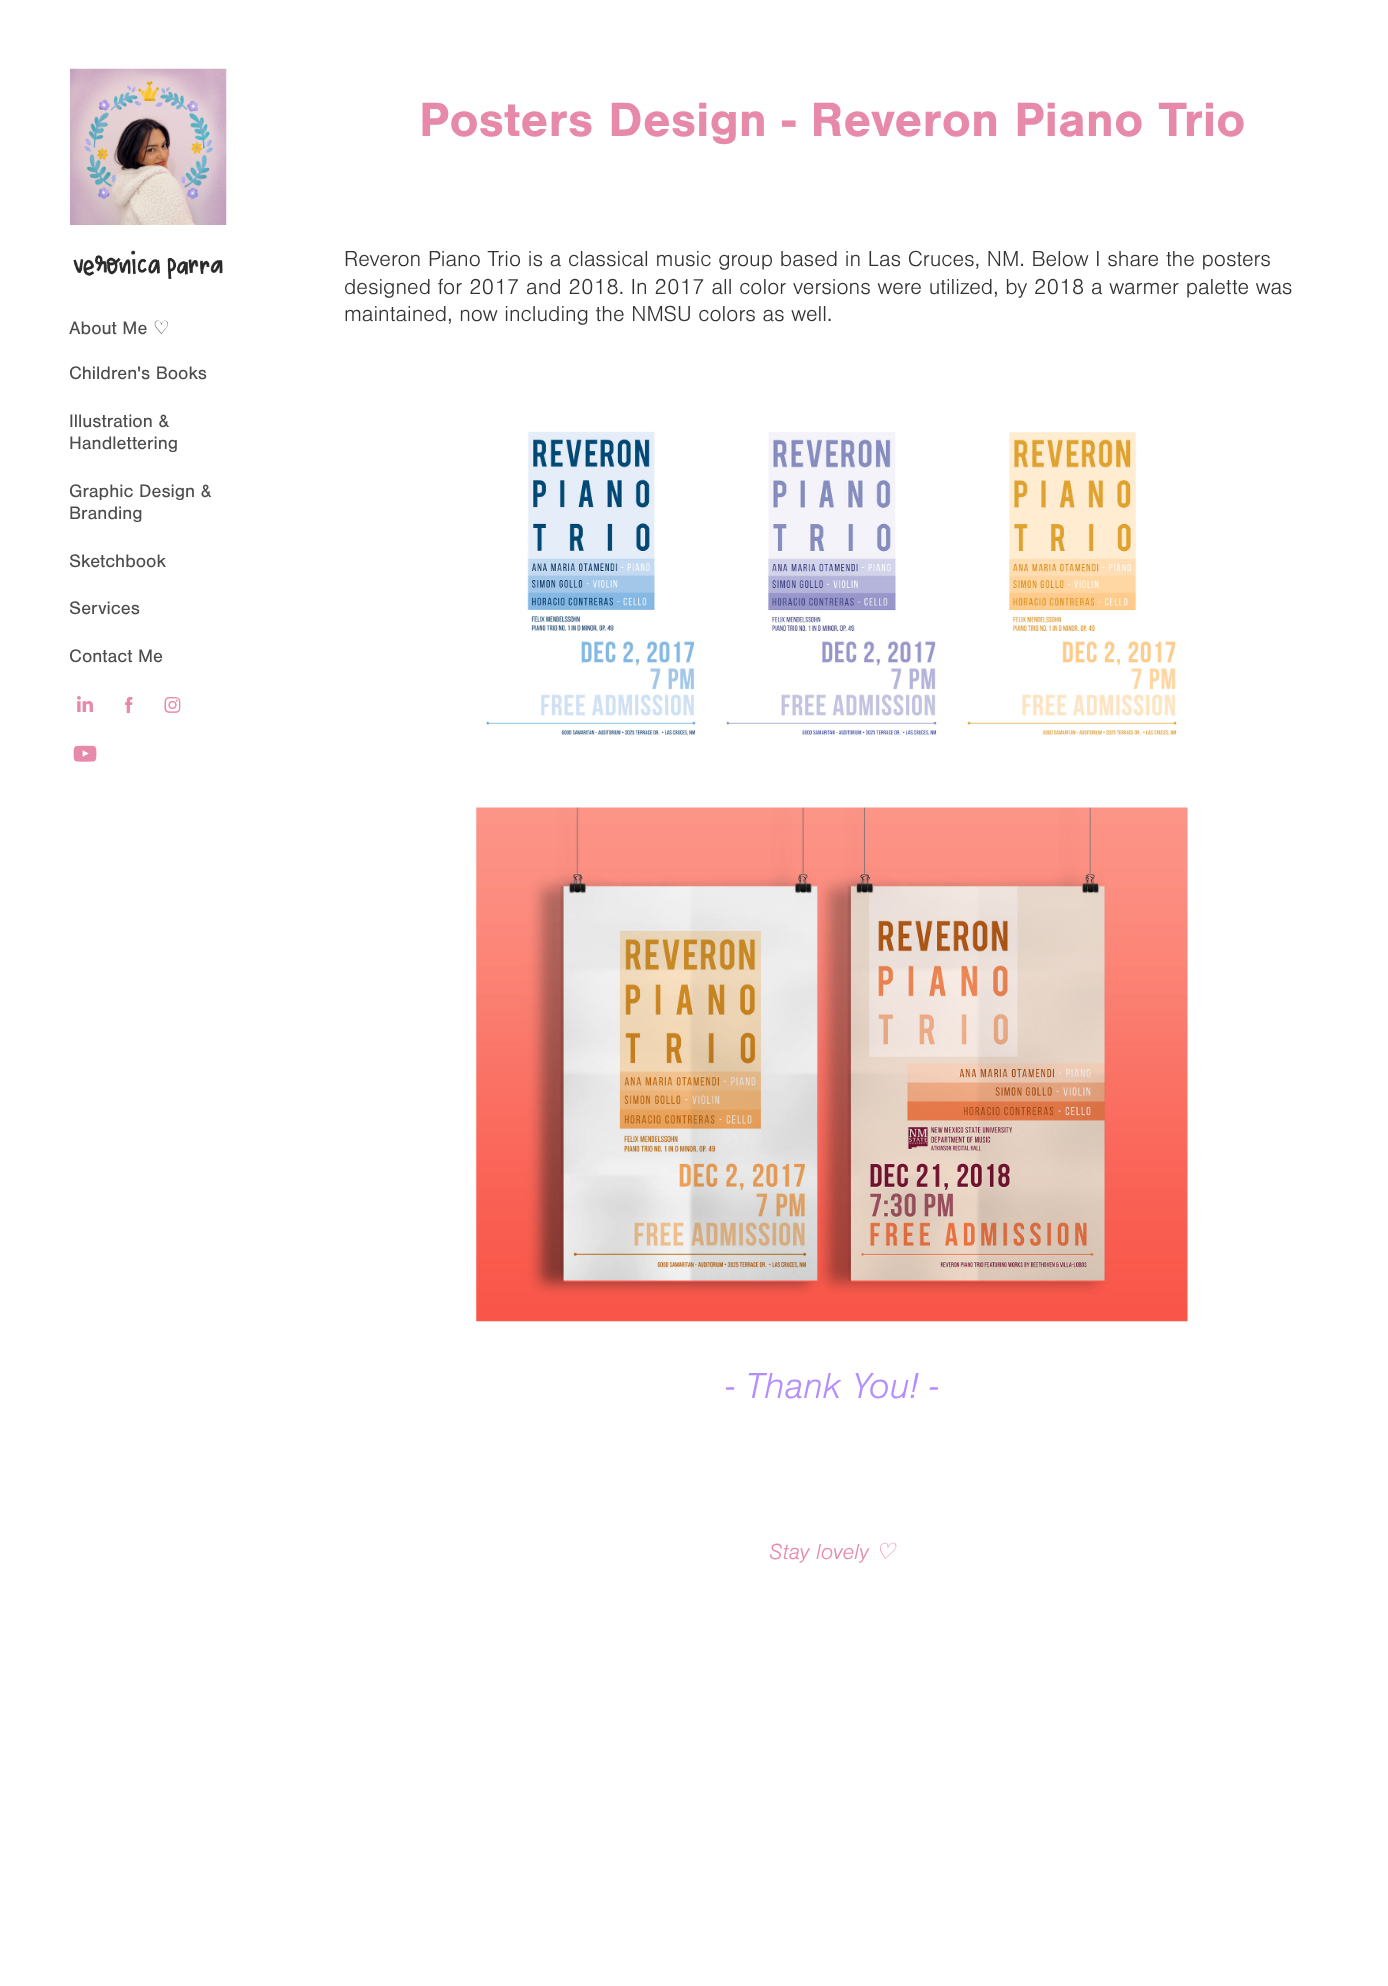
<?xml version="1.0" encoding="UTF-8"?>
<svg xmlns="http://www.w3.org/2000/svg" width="1388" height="1986">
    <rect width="100%" height="100%" fill="#FFFFFF"/>
    <image x="70" y="68" width="157" height="157" href="img_01.png"/>
    <image x="73" y="250" width="150" height="30" href="img_02.png"/>
    <text x="69" y="334" font-family="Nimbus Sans" font-size="18.75" fill="#4D4D4D">About Me</text>
    <text x="153" y="334" font-family="DejaVu Sans" font-size="18.75" fill="#4D4D4D">♡</text>
    <text x="69" y="379" font-family="Nimbus Sans" font-size="18.75" fill="#4D4D4D">Children's Books</text>
    <text font-family="Nimbus Sans" font-size="18.75" fill="#4D4D4D">
        <tspan x="69" y="427">Illustration &amp;</tspan>
        <tspan x="69" y="449">Handlettering</tspan>
    </text>
    <text font-family="Nimbus Sans" font-size="18.75" fill="#4D4D4D">
        <tspan x="69" y="497">Graphic Design &amp;</tspan>
        <tspan x="69" y="519">Branding</tspan>
    </text>
    <text x="69" y="567" font-family="Nimbus Sans" font-size="18.75" fill="#4D4D4D">Sketchbook</text>
    <text x="69" y="614" font-family="Nimbus Sans" font-size="18.75" fill="#4D4D4D">Services</text>
    <text x="69" y="662" font-family="Nimbus Sans" font-size="18.75" fill="#4D4D4D">Contact Me</text>
    <image x="77" y="696" width="16" height="16" href="img_03.png"/>
    <image x="125" y="697" width="8" height="16" href="img_04.png"/>
    <image x="164" y="697" width="17" height="16" href="img_05.png"/>
    <image x="73" y="745" width="24" height="17" href="img_06.png"/>
    <text x="419" y="136" font-family="Nimbus Sans" font-size="50" font-weight="700" fill="#E78AA9">Posters Design - Reveron Piano Trio</text>
    <text font-family="Nimbus Sans" font-size="22.5" font-weight="300" fill="#333333">
        <tspan x="344" y="266">Reveron Piano Trio is a classical music group based in Las Cruces, NM. Below I share the posters</tspan>
        <tspan x="344" y="294">designed for 2017 and 2018. In 2017 all color versions were utilized, by 2018 a warmer palette was</tspan>
        <tspan x="344" y="321">maintained, now including the NMSU colors as well.</tspan>
    </text>
    <image x="485" y="431" width="211" height="305" href="img_07.png"/>
    <image x="726" y="432" width="212" height="304" href="img_08.png"/>
    <image x="967" y="431" width="211" height="305" href="img_09.png"/>
    <image x="476" y="807" width="712" height="515" href="img_10.png"/>
    <text x="726" y="1398" font-family="Nimbus Sans" font-size="37.5" font-weight="300" font-style="italic" fill="#B48EFF">- Thank You! -</text>
    <text x="769" y="1559" font-family="Nimbus Sans" font-size="22.5" font-weight="300" font-style="italic" fill="#E78AA9">Stay lovely</text>
    <text x="875" y="1559" font-family="DejaVu Sans" font-size="22.5" font-style="italic" fill="#E78AA9">♡</text>
</svg>
